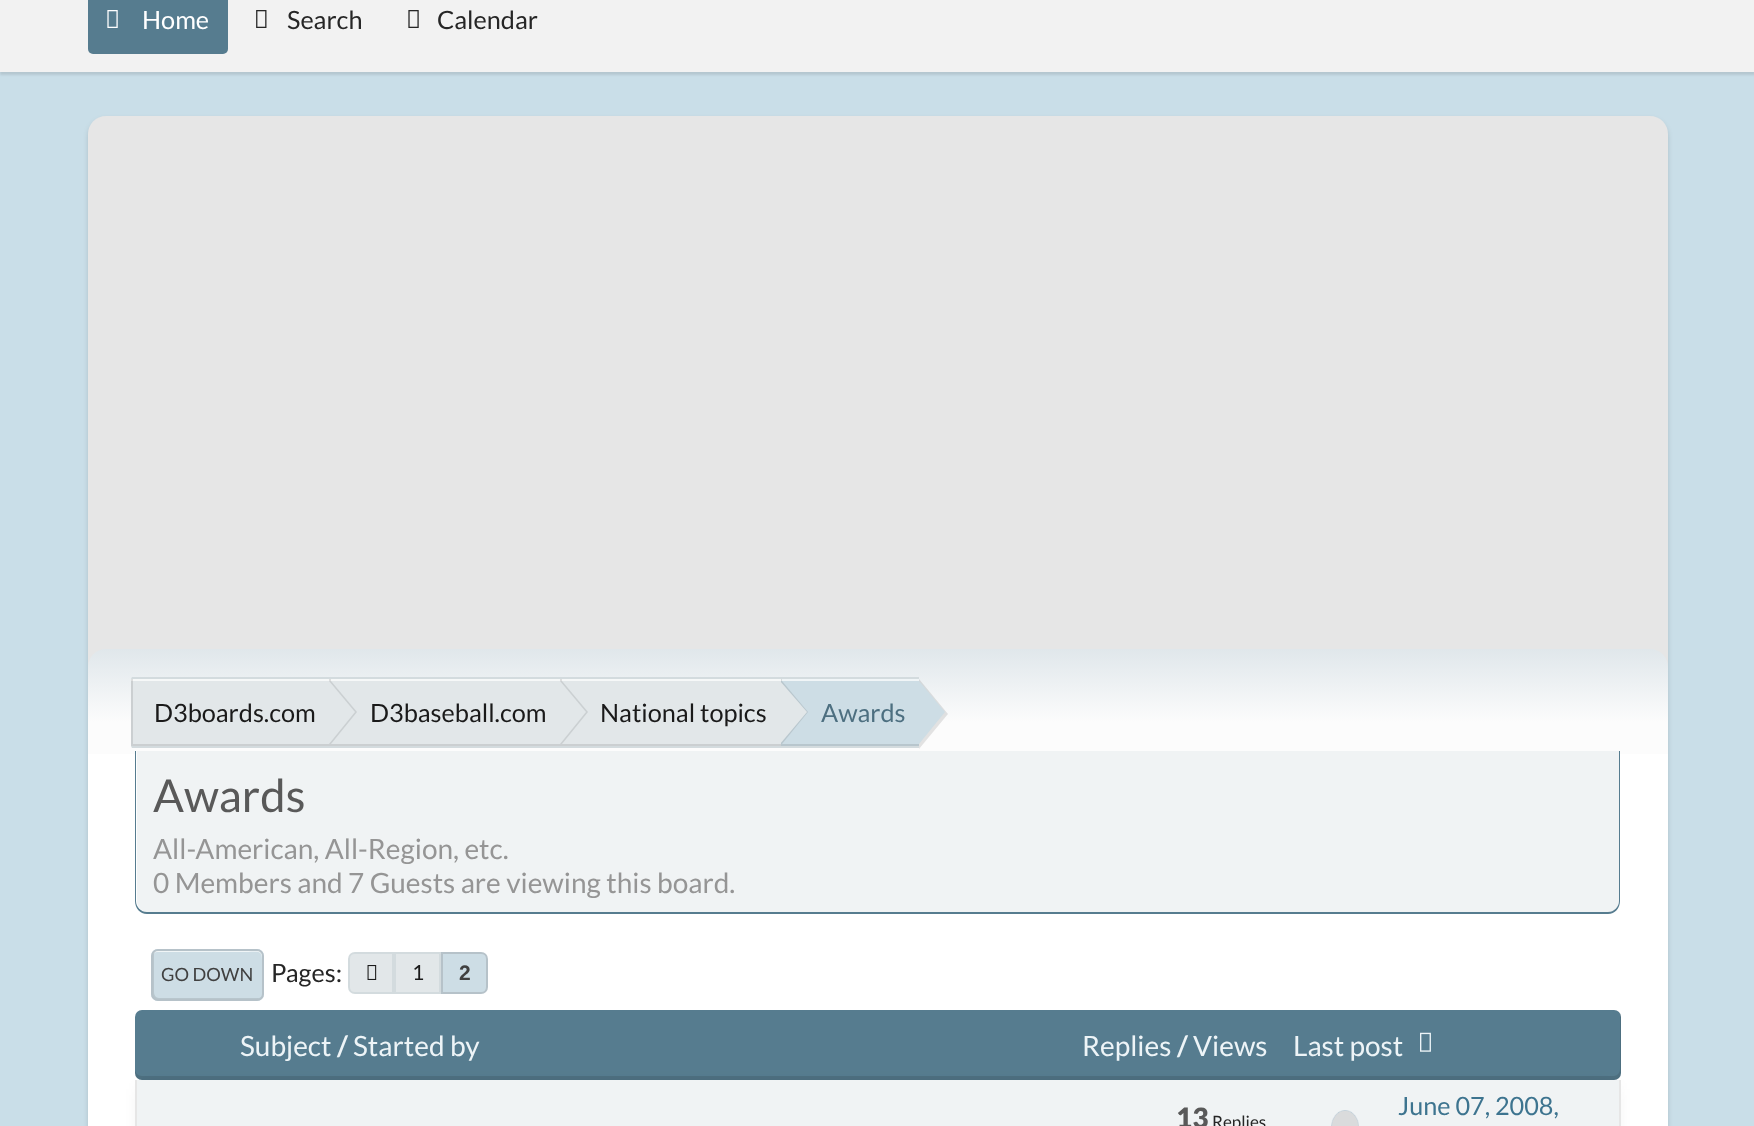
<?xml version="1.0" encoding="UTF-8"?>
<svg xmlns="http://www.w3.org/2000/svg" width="1754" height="1126">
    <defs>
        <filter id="blur1" x="-50%" y="-200%" width="200%" height="500%"><feGaussianBlur stdDeviation="1"/></filter>
        <filter id="blur2" x="-50%" y="-200%" width="200%" height="500%"><feGaussianBlur stdDeviation="2.5"/></filter>
        <linearGradient id="g1" gradientUnits="userSpaceOnUse" x1="878" y1="649" x2="878" y2="754"><stop offset="0" stop-color="#E0E7EB"/><stop offset="0.7" stop-color="#FCFCFC"/></linearGradient>
        <clipPath id="clip1"><rect x="131" y="679" width="198" height="67"/></clipPath>
        <clipPath id="clip2"><rect x="131" y="676" width="1493" height="73" rx="4"/></clipPath>
        <clipPath id="clip3"><rect x="329" y="679" width="231" height="67"/></clipPath>
        <clipPath id="clip4"><rect x="560" y="679" width="221" height="67"/></clipPath>
        <clipPath id="clip5"><rect x="781" y="679" width="138" height="67"/></clipPath>
        <filter id="blur3" x="-50%" y="-200%" width="200%" height="500%"><feGaussianBlur stdDeviation="9"/></filter>
    </defs>
    <rect width="100%" height="100%" fill="#C9DEE8"/>
    <rect x="0" y="-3" width="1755" height="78" fill="#000000" fill-opacity="0.1" filter="url(#blur1)"/>
    <rect x="0" y="0" width="1754" height="72" fill="#F2F2F2"/>
    <rect x="88" y="-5" width="140" height="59" rx="5" fill="#567C8F"/>
    <image x="107" y="10" width="11" height="18" href="img_01.png"/>
    <text x="142" y="29" font-family="Lato" font-size="25.25" fill="#FFFFFF">Home</text>
    <image x="256" y="10" width="11" height="18" href="img_02.png"/>
    <text x="287" y="29" font-family="Lato" font-size="25.25" fill="#262626">Search</text>
    <image x="408" y="10" width="11" height="18" href="img_03.png"/>
    <text x="437" y="29" font-family="Lato" font-size="25.25" fill="#262626">Calendar</text>
    <rect x="88" y="119" width="1580" height="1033" rx="18" fill="#000000" fill-opacity="0.14" filter="url(#blur2)"/>
    <path d="M 106 116 H 1650 C 1660 116 1668 124 1668 134 V 754 H 88 V 134 C 88 124 96 116 106 116 Z" fill="#E6E6E6"/>
    <path d="M 106 649 H 1650 C 1660 649 1668 657 1668 667 V 754 H 88 V 667 C 88 657 96 649 106 649 Z" fill="url(#g1)"/>
    <rect x="131" y="679" width="198" height="67" fill="#E2E7E9"/>
    <rect x="131" y="679" width="650" height="2" fill="#F6F8F8"/>
    <g clip-path="url(#clip1)">
        <path d="M 135 676 H 502 V 749 H 135 C 133 749 131 747 131 745 V 680 C 131 678 133 676 135 676 Z M 133 677 V 744 H 331 V 677 Z" fill="#000000" fill-opacity="0.1" fill-rule="evenodd"/>
    </g>
    <g clip-path="url(#clip2)">
        <rect x="131" y="677" width="198" height="2" fill="#D3DBDE"/>
        <rect x="131" y="746" width="198" height="2" fill="#D3DBDE"/>
    </g>
    <rect x="329" y="681" width="452" height="65" fill="#E2E7E9"/>
    <g clip-path="url(#clip3)">
        <path d="M 156 749 V 676 H 733 V 749 Z M 331 677 V 744 H 562 V 677 Z" fill="#000000" fill-opacity="0.1" fill-rule="evenodd"/>
    </g>
    <path d="M 331 744 V 681 L 357 712 Z" fill="#CBD0D2"/>
    <path d="M 329 744 V 681 L 355 712 Z" fill="#E2E7E9"/>
    <text x="154" y="722" font-family="Lato" font-size="25.25" fill="#1A1A1A">D3boards.com</text>
    <rect x="329" y="677" width="590" height="2" fill="#D3DBDE"/>
    <rect x="329" y="746" width="590" height="2" fill="#D3DBDE"/>
    <g clip-path="url(#clip4)">
        <path d="M 387 749 V 676 H 954 V 749 Z M 562 677 V 744 H 782 V 677 Z" fill="#000000" fill-opacity="0.1" fill-rule="evenodd"/>
    </g>
    <path d="M 562 744 V 681 L 588 712 Z" fill="#CBD0D2"/>
    <path d="M 560 744 V 681 L 586 712 Z" fill="#E2E7E9"/>
    <text x="370" y="722" font-family="Lato" font-size="25.25" fill="#1A1A1A">D3baseball.com</text>
    <rect x="781" y="681" width="138" height="65" fill="#CDDDE5"/>
    <rect x="781" y="679" width="138" height="2" fill="#F0F5F7"/>
    <g clip-path="url(#clip5)">
        <path d="M 607 749 V 676 H 1092 V 749 Z M 782 677 V 744 H 920 V 677 Z" fill="#000000" fill-opacity="0.1" fill-rule="evenodd"/>
    </g>
    <path d="M 782 744 V 681 L 808 712 Z" fill="#B9C7CE"/>
    <path d="M 780 744 V 681 L 807 712 Z" fill="#E2E7E9"/>
    <text x="600" y="722" font-family="Lato" font-size="25.25" fill="#1A1A1A">National topics</text>
    <path d="M 919 749 V 679 L 948 714 Z" fill="#000000" fill-opacity="0.1"/>
    <text x="821" y="722" font-family="Lato" font-size="25.25" fill="#4D6F80">Awards</text>
    <path d="M 919 744 V 681 L 945 712 Z" fill="#CDDDE5"/>
    <rect x="88" y="754" width="1580" height="372" fill="#FFFFFF"/>
    <path d="M 137 751 H 1619 V 901 C 1619 907 1614 912 1608 912 H 148 C 142 912 137 907 137 901 Z" fill="#F0F3F4"/>
    <path d="M 135 751 H 1620 V 901 C 1620 908 1615 914 1608 914 H 147 C 140 914 135 908 135 901 Z M 136 751 H 1619 V 901 C 1619 907 1614 912 1608 912 H 147 C 141 912 136 907 136 901 Z" fill="#567C8F" fill-rule="evenodd"/>
    <text x="153" y="812" font-family="Lato" font-size="45.5" fill="#595959">Awards</text>
    <text font-family="Lato" font-size="28" fill="#959595">
        <tspan x="153" y="859">All-American, All-Region, etc.</tspan>
        <tspan x="153" y="893">0 Members and 7 Guests are viewing this board.</tspan>
    </text>
    <rect x="151" y="949" width="113" height="52" rx="7" fill="#CDDDE5"/>
    <path d="M 158 952 H 240 C 264 952 262 948 262 970 V 997 C 263 996 263 995 263 994 V 955 C 263 952 261 950 258 950 H 157 C 154 950 152 952 152 955 V 957 C 152 954 155 952 158 952 Z" fill="#F0F5F7"/>
    <path d="M 155 950 C 153 951 152 953 152 955 V 994 C 152 997 154 999 157 999 H 258 C 260 999 262 998 262 996 C 262 997 260 998 259 998 H 159 C 156 998 154 995 154 992 V 954 Z" fill="#000000" fill-opacity="0.1"/>
    <rect x="152" y="950" width="111" height="50" rx="6" fill="none" stroke="#B6C2C9" stroke-width="2"/>
    <text x="161" y="981" font-family="Lato" font-size="18.25" fill="#404040">GO DOWN</text>
    <text x="271" y="982" font-family="Lato" font-size="25.25" fill="#262626">Pages:</text>
    <path d="M 355 953 H 393 V 993 H 355 C 351.5 993 349 990.5 349 987 V 959 C 349 955.5 351.5 953 355 953 Z" fill="#E2E7E9" stroke="#D3DBDE" stroke-width="2"/>
    <image x="367" y="965" width="10" height="15" href="img_04.png"/>
    <rect x="395" y="953" width="45" height="40" fill="#E2E7E9" stroke="#D3DBDE" stroke-width="2"/>
    <text x="412" y="980" font-family="Lato" font-size="21" fill="#1A1A1A">1</text>
    <path d="M 442 953 H 481 C 484.5 953 487 955.5 487 959 V 987 C 487 990.5 484.5 993 481 993 H 442 Z" fill="#CDDDE5" stroke="#B6C2C9" stroke-width="2"/>
    <text x="459" y="980" font-family="Liberation Sans" font-size="21" font-weight="700" fill="#404040">2</text>
    <rect x="135" y="1010" width="1486" height="70" rx="7" fill="#567C8F"/>
    <path d="M 135 1069 V 1073 C 135 1077 138 1080 142 1080 H 1614 C 1618 1080 1621 1077 1621 1073 V 1017 C 1621 1016 1621 1014 1620 1013 V 1069 C 1620 1073 1617 1076 1614 1076 H 142 C 138 1076 135 1073 135 1069 Z" fill="#000000" fill-opacity="0.1"/>
    <text x="240" y="1056" font-family="Lato" font-size="28" fill="#EDF4F7">Subject</text>
    <text x="337" y="1056" font-family="Lato" font-size="28" font-weight="700" fill="#EDF4F7">/</text>
    <text x="353" y="1056" font-family="Lato" font-size="28" fill="#EDF4F7">Started by</text>
    <text x="1082" y="1056" font-family="Lato" font-size="28" fill="#EDF4F7">Replies</text>
    <text x="1177" y="1056" font-family="Lato" font-size="28" font-weight="700" fill="#EDF4F7">/</text>
    <text x="1193" y="1056" font-family="Lato" font-size="28" fill="#EDF4F7">Views</text>
    <text x="1293" y="1056" font-family="Lato" font-size="28" fill="#EDF4F7">Last post</text>
    <image x="1420" y="1032" width="11" height="20" href="img_05.png"/>
    <rect x="144" y="1089" width="1468" height="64" fill="#000000" fill-opacity="0.15" filter="url(#blur3)"/>
    <rect x="137" y="1080" width="1482" height="46" fill="#F0F3F4"/>
    <rect x="1619" y="1080" width="2" height="46" fill="#E6E6E6"/>
    <rect x="135" y="1080" width="2" height="46" fill="#E6E6E6"/>
    <text x="1176" y="1128" font-family="Lato" font-size="28" font-weight="900" fill="#595959">13</text>
    <text x="1212" y="1128" font-family="Lato" font-size="17" fill="#262626">Replies</text>
    <image x="1331" y="1110" width="28" height="16" href="img_06.png"/>
    <text x="1398" y="1115" font-family="Lato" font-size="25.25" fill="#3D748F">June 07, 2008,</text>
</svg>
